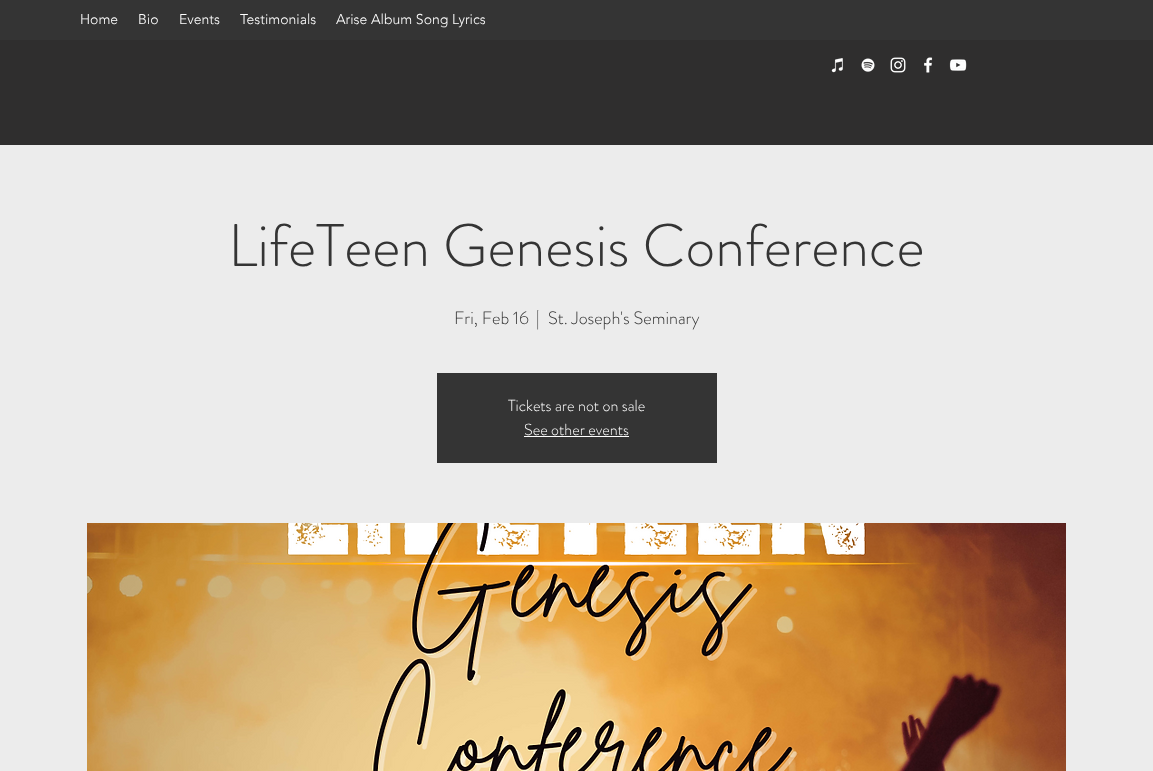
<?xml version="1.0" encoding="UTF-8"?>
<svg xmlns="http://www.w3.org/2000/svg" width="1153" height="771">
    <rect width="100%" height="100%" fill="#2F2E2E"/>
    <rect x="0" y="0" width="1153" height="40" fill="#343434"/>
    <text x="80" y="24" font-family="'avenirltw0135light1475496'" font-size="14" font-weight="300" fill="#FFFFFF">Home</text>
    <text x="138" y="24" font-family="'avenirltw0135light1475496'" font-size="14" font-weight="300" fill="#FFFFFF">Bio</text>
    <text x="179" y="24" font-family="'avenirltw0135light1475496'" font-size="14" font-weight="300" fill="#FFFFFF">Events</text>
    <text x="240" y="24" font-family="'avenirltw0135light1475496'" font-size="14" font-weight="300" fill="#FFFFFF">Testimonials</text>
    <text x="336" y="24" font-family="'avenirltw0135light1475496'" font-size="14" font-weight="300" fill="#FFFFFF">Arise Album Song Lyrics</text>
    <image x="831" y="58" width="12" height="15" href="img_01.png"/>
    <image x="861" y="58" width="14" height="14" href="img_02.png"/>
    <image x="890" y="57" width="16" height="16" href="img_03.png"/>
    <image x="924" y="57" width="9" height="16" href="img_04.png"/>
    <image x="949" y="59" width="18" height="12" href="img_05.png"/>
    <rect x="0" y="145" width="1153" height="626" fill="#ECECEC"/>
    <text x="228" y="266" font-family="'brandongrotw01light'" font-size="60" font-weight="300" fill="#343434">LifeTeen Genesis Conference</text>
    <text x="454" y="324" font-family="'brandongrotw01light'" font-size="18" font-weight="300" fill="#343434">Fri, Feb 16</text>
    <text x="536" y="324" font-family="'brandongrotw01light'" font-size="18" font-weight="300" fill="#343434">|</text>
    <text x="548" y="324" font-family="'brandongrotw01light'" font-size="18" font-weight="300" fill="#343434">St. Joseph's Seminary</text>
    <rect x="437" y="373" width="280" height="90" fill="#343434"/>
    <text x="508" y="411" font-family="'brandongrotw01light'" font-size="16" font-weight="300" fill="#FFFFFF">Tickets are not on sale</text>
    <text x="524" y="435" font-family="'brandongrotw01light'" font-size="16" font-weight="300" fill="#FFFFFF">See other events</text>
    <rect x="524" y="436" width="105" height="1" fill="#FFFFFF"/>
    <image x="87" y="523" width="979" height="248" href="img_06.png"/>
</svg>
